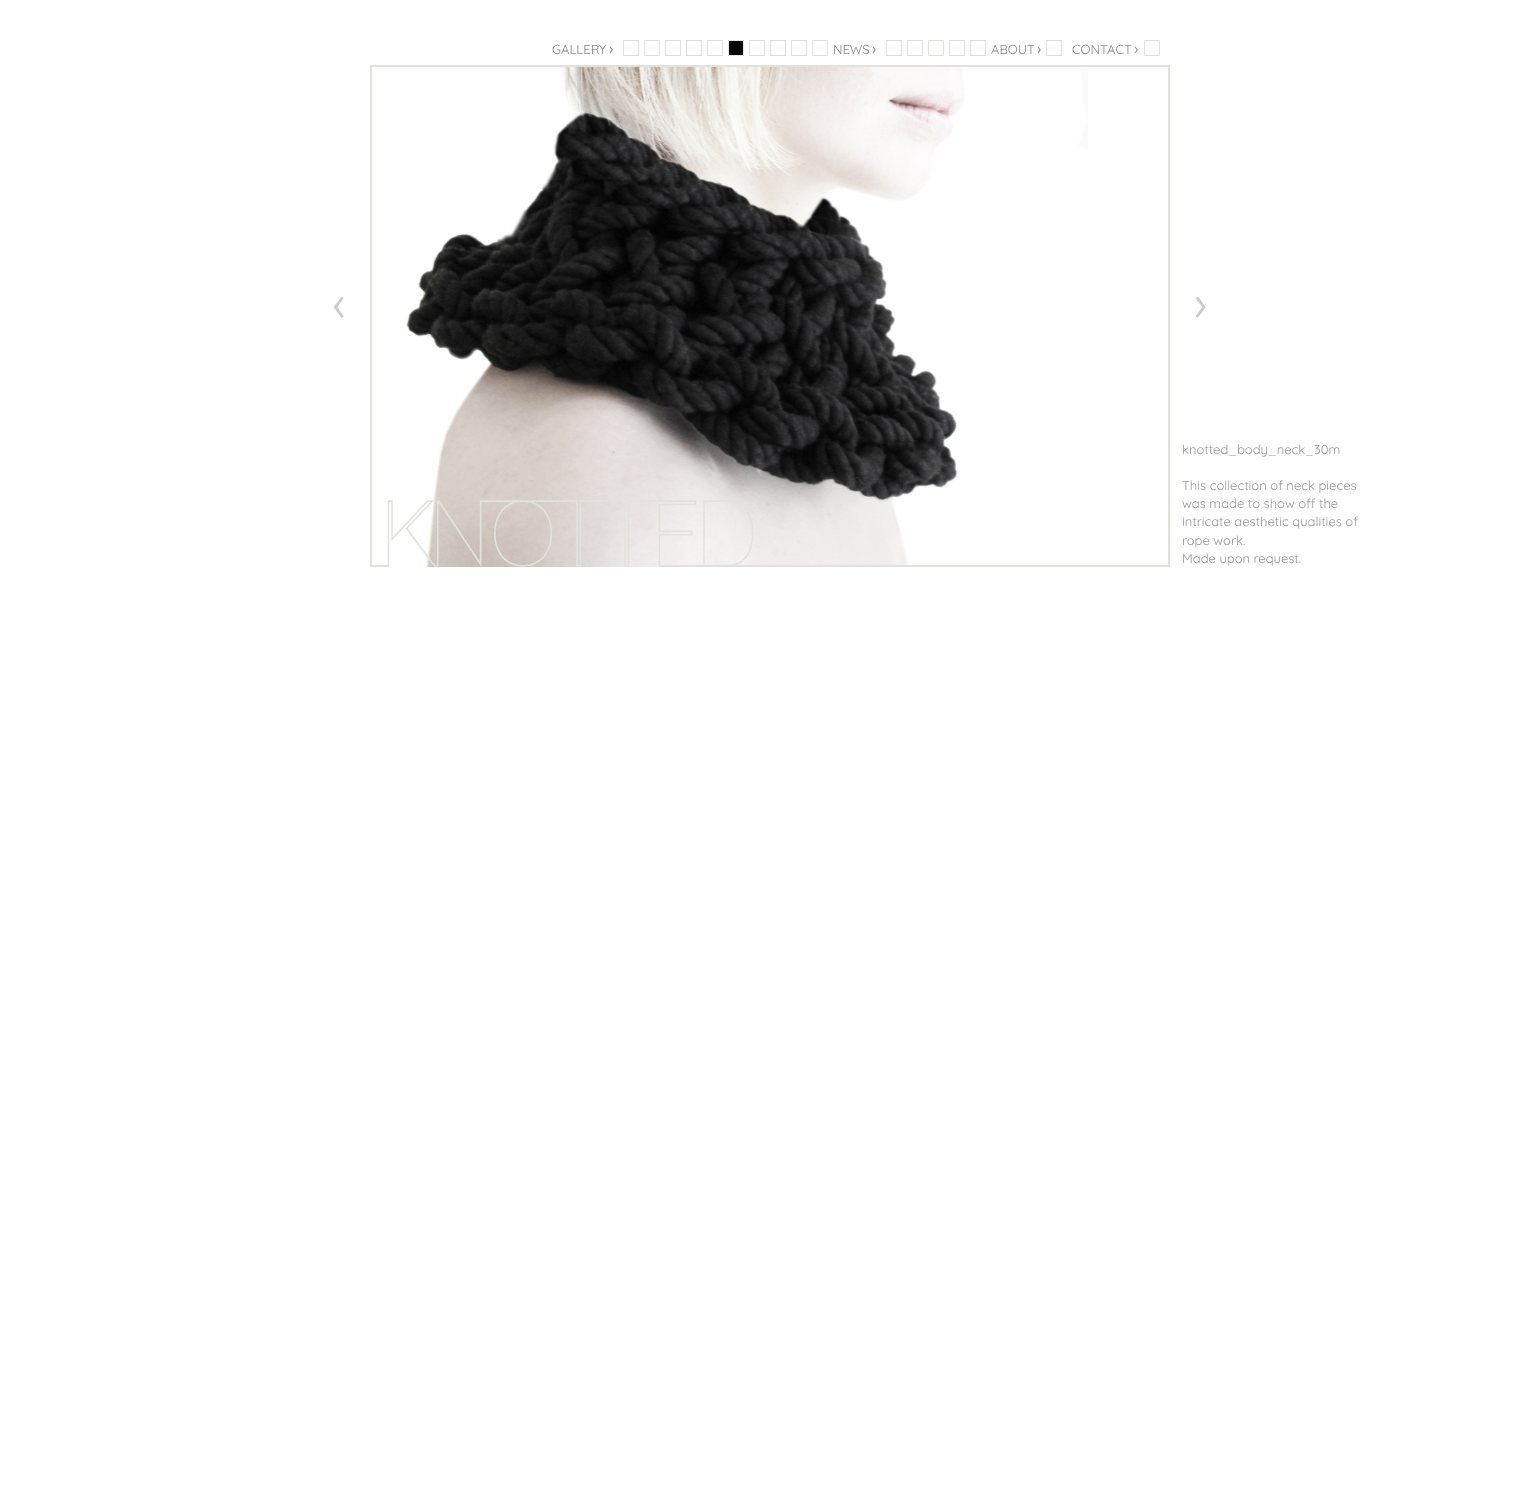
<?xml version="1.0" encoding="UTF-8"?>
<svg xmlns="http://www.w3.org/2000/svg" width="1539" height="1500">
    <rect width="100%" height="100%" fill="#FFFFFF"/>
    <text x="552" y="54" font-family="Quicksand" font-size="13" fill="#888888">GALLERY</text>
    <text x="609" y="54" font-family="Quicksand" font-size="16" fill="#888888">›</text>
    <rect x="623.5" y="40.5" width="15" height="15" fill="none" stroke="#E2E2DD"/>
    <rect x="644.5" y="40.5" width="15" height="15" fill="none" stroke="#E2E2DD"/>
    <rect x="665.5" y="40.5" width="15" height="15" fill="none" stroke="#E2E2DD"/>
    <rect x="686.5" y="40.5" width="15" height="15" fill="none" stroke="#E2E2DD"/>
    <rect x="707.5" y="40.5" width="15" height="15" fill="none" stroke="#E2E2DD"/>
    <rect x="728.5" y="40.5" width="15" height="15" fill="#000000" stroke="#E2E2DD"/>
    <rect x="749.5" y="40.5" width="15" height="15" fill="none" stroke="#E2E2DD"/>
    <rect x="770.5" y="40.5" width="15" height="15" fill="none" stroke="#E2E2DD"/>
    <rect x="791.5" y="40.5" width="15" height="15" fill="none" stroke="#E2E2DD"/>
    <rect x="812.5" y="40.5" width="15" height="15" fill="none" stroke="#E2E2DD"/>
    <text x="833" y="54" font-family="Quicksand" font-size="13" fill="#888888">NEWS</text>
    <text x="872" y="54" font-family="Quicksand" font-size="16" fill="#888888">›</text>
    <rect x="886.5" y="40.5" width="15" height="15" fill="none" stroke="#E2E2DD"/>
    <rect x="907.5" y="40.5" width="15" height="15" fill="none" stroke="#E2E2DD"/>
    <rect x="928.5" y="40.5" width="15" height="15" fill="none" stroke="#E2E2DD"/>
    <rect x="949.5" y="40.5" width="15" height="15" fill="none" stroke="#E2E2DD"/>
    <rect x="970.5" y="40.5" width="15" height="15" fill="none" stroke="#E2E2DD"/>
    <text x="991" y="54" font-family="Quicksand" font-size="13" fill="#888888">ABOUT</text>
    <text x="1037" y="54" font-family="Quicksand" font-size="16" fill="#888888">›</text>
    <rect x="1046.5" y="40.5" width="15" height="15" fill="none" stroke="#E2E2DD"/>
    <text x="1072" y="54" font-family="Quicksand" font-size="13" fill="#888888">CONTACT</text>
    <text x="1134" y="54" font-family="Quicksand" font-size="16" fill="#888888">›</text>
    <rect x="1144.5" y="40.5" width="15" height="15" fill="none" stroke="#E2E2DD"/>
    <rect x="370" y="65" width="800" height="2" fill="#E2E2DD"/>
    <rect x="1168" y="65" width="2" height="502" fill="#E2E2DD"/>
    <rect x="370" y="65" width="2" height="502" fill="#E2E2DD"/>
    <text x="332" y="320" font-family="Quicksand" font-size="50" fill="#CCCCCC">‹</text>
    <image x="406" y="67" width="682" height="500" href="img_01.png"/>
    <text x="1194" y="320" font-family="Quicksand" font-size="50" fill="#CCCCCC">›</text>
    <image x="372" y="500" width="796" height="67" href="img_02.png"/>
    <text x="1182" y="454" font-family="Quicksand" font-size="13" fill="#999999">knotted_body_neck_30m</text>
    <text font-family="Quicksand" font-size="13" fill="#999999">
        <tspan x="1182" y="490">This collection of neck pieces</tspan>
        <tspan x="1182" y="508">was made to show off the</tspan>
        <tspan x="1182" y="526">intricate aesthetic qualities of</tspan>
        <tspan x="1182" y="545">rope work.</tspan>
        <tspan x="1182" y="563">Made upon request.</tspan>
    </text>
</svg>
